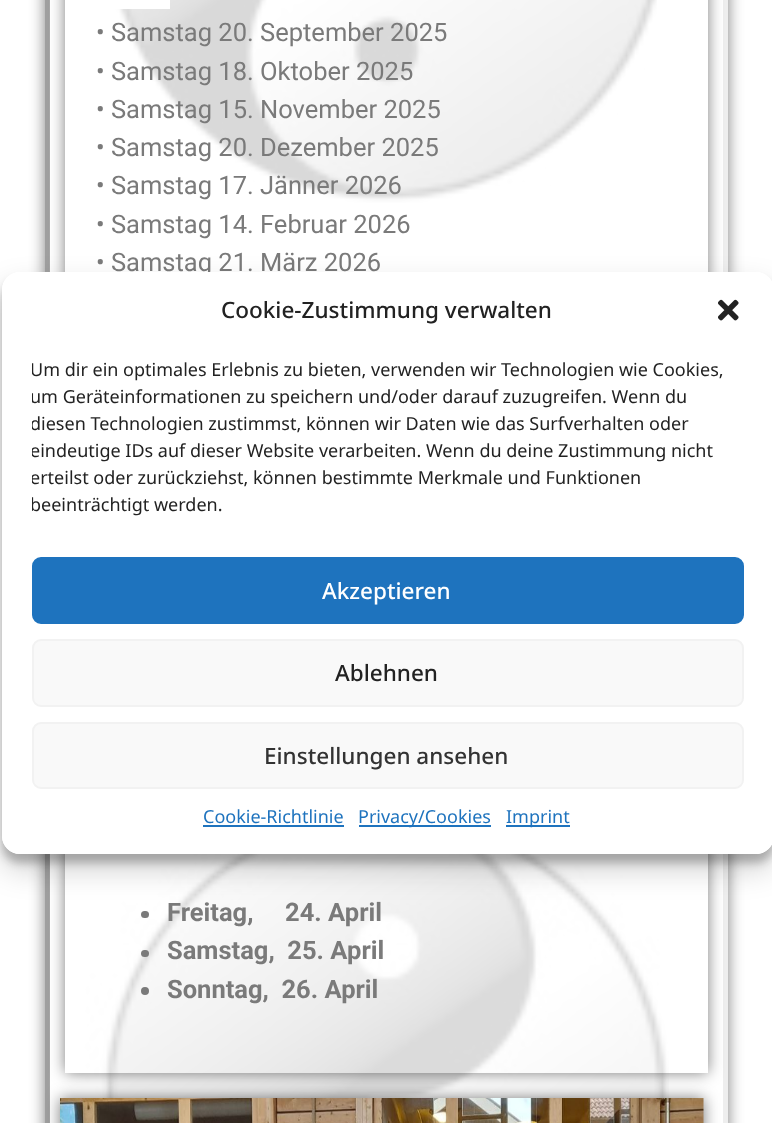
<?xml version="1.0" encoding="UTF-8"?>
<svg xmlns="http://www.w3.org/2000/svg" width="772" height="1123">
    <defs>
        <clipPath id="clip1"><path d="M 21 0 H 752 V 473 H 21 Z M 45 -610 H 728 V 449 H 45 Z" clip-rule="evenodd"/></clipPath>
        <filter id="blur1" x="-50%" y="-200%" width="200%" height="500%"><feGaussianBlur stdDeviation="7.5"/></filter>
        <clipPath id="clip2"><path d="M 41 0 H 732 V 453 H 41 Z M 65 -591 H 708 V 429 H 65 Z" clip-rule="evenodd"/></clipPath>
        <clipPath id="clip3"><path d="M 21 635 H 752 V 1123 H 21 Z M 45 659 H 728 V 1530 H 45 Z" clip-rule="evenodd"/></clipPath>
        <clipPath id="clip4"><path d="M 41 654 H 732 V 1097 H 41 Z M 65 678 H 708 V 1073 H 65 Z" clip-rule="evenodd"/></clipPath>
        <clipPath id="clip5"><path d="M 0 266 H 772 V 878 H 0 Z M 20 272 H 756 C 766 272 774 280 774 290 V 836 C 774 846 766 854 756 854 H 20 C 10 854 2 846 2 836 V 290 C 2 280 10 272 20 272 Z" clip-rule="evenodd"/></clipPath>
        <filter id="blur2" x="-50%" y="-200%" width="200%" height="500%"><feGaussianBlur stdDeviation="4.5"/></filter>
        <clipPath id="clip6"><path d="M 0 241 H 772 V 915 H 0 Z M 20 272 H 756 C 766 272 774 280 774 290 V 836 C 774 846 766 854 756 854 H 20 C 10 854 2 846 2 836 V 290 C 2 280 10 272 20 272 Z" clip-rule="evenodd"/></clipPath>
        <filter id="blur3" x="-50%" y="-200%" width="200%" height="500%"><feGaussianBlur stdDeviation="15"/></filter>
        <clipPath id="clip7"><rect x="32" y="357" width="712" height="170"/></clipPath>
    </defs>
    <rect width="100%" height="100%" fill="#FFFFFF"/>
    <g clip-path="url(#clip1)">
        <rect x="45" y="-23" width="683" height="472" fill="#000000" fill-opacity="0.5" filter="url(#blur1)"/>
    </g>
    <path d="M 728 -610 V 448 L 723 444 V -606 Z" fill="#EEEEEE"/>
    <path d="M 45 448 V -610 L 50 -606 V 444 Z" fill="#9F9F9F"/>
    <image x="49" y="0" width="608" height="272" href="img_01.png"/>
    <g clip-path="url(#clip2)">
        <rect x="65" y="-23" width="643" height="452" fill="#000000" fill-opacity="0.5" filter="url(#blur1)"/>
    </g>
    <rect x="115" y="0" width="55" height="9" fill="#FFFFFF"/>
    <text font-family="Roboto" font-size="25.5" fill="#7A7A7A">
        <tspan x="96" y="41">• Samstag 20. September 2025</tspan>
        <tspan x="96" y="80">• Samstag 18. Oktober 2025</tspan>
        <tspan x="96" y="118">• Samstag 15. November 2025</tspan>
        <tspan x="96" y="156">• Samstag 20. Dezember 2025</tspan>
        <tspan x="96" y="194">• Samstag 17. Jänner 2026</tspan>
        <tspan x="96" y="233">• Samstag 14. Februar 2026</tspan>
        <tspan x="96" y="271">• Samstag 21. März 2026</tspan>
    </text>
    <g clip-path="url(#clip3)">
        <rect x="45" y="659" width="683" height="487" fill="#000000" fill-opacity="0.5" filter="url(#blur1)"/>
    </g>
    <path d="M 728 658 V 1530 L 723 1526 V 663 Z" fill="#EEEEEE"/>
    <path d="M 45 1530 V 658 L 50 663 V 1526 Z" fill="#9F9F9F"/>
    <image x="49" y="854" width="620" height="269" href="img_02.png"/>
    <g clip-path="url(#clip4)">
        <rect x="65" y="678" width="643" height="395" fill="#000000" fill-opacity="0.5" filter="url(#blur1)"/>
    </g>
    <rect x="141" y="911" width="8" height="7" rx="3.5" fill="#7A7A7A"/>
    <text x="167" y="921" font-family="Roboto" font-size="25.5" font-weight="700" fill="#7A7A7A" xml:space="preserve">Freitag,     24. April</text>
    <rect x="141" y="950" width="8" height="7" rx="3.5" fill="#7A7A7A"/>
    <text x="167" y="959" font-family="Roboto" font-size="25.5" font-weight="700" fill="#7A7A7A" xml:space="preserve">Samstag,  25. April</text>
    <circle cx="145" cy="991" r="4" fill="#7A7A7A"/>
    <text x="167" y="998" font-family="Roboto" font-size="25.5" font-weight="700" fill="#7A7A7A" xml:space="preserve">Sonntag,  26. April</text>
    <rect x="60" y="1098" width="644" height="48" fill="#000000" fill-opacity="0.5" filter="url(#blur1)"/>
    <image x="60" y="1098" width="644" height="25" href="img_03.png"/>
    <g clip-path="url(#clip5)">
        <rect x="2" y="281" width="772" height="582" rx="18" fill="#000000" fill-opacity="0.23" filter="url(#blur2)"/>
    </g>
    <g clip-path="url(#clip6)">
        <rect x="2" y="287" width="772" height="582" rx="18" fill="#000000" fill-opacity="0.19" filter="url(#blur3)"/>
    </g>
    <rect x="2" y="272" width="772" height="582" rx="18" fill="#FFFFFF"/>
    <text x="221" y="318" font-family="Noto Sans" font-size="22.5" font-weight="500" fill="#222222">Cookie-Zustimmung verwalten</text>
    <image x="718" y="299" width="21" height="22" href="img_04.png"/>
    <g clip-path="url(#clip7)">
        <text font-family="Noto Sans" font-size="18" fill="#222222">
            <tspan x="30" y="376">Um dir ein optimales Erlebnis zu bieten, verwenden wir Technologien wie Cookies,</tspan>
            <tspan x="30" y="403">um Geräteinformationen zu speichern und/oder darauf zuzugreifen. Wenn du</tspan>
            <tspan x="30" y="430">diesen Technologien zustimmst, können wir Daten wie das Surfverhalten oder</tspan>
            <tspan x="30" y="457">eindeutige IDs auf dieser Website verarbeiten. Wenn du deine Zustimmung nicht</tspan>
            <tspan x="30" y="484">erteilst oder zurückziehst, können bestimmte Merkmale und Funktionen</tspan>
            <tspan x="30" y="511">beeinträchtigt werden.</tspan>
        </text>
    </g>
    <rect x="33" y="558" width="710" height="65" rx="8" fill="#1E73BE" stroke="#1E73BE" stroke-width="2"/>
    <text x="322" y="599" font-family="Noto Sans" font-size="22.5" font-weight="500" fill="#FFFFFF">Akzeptieren</text>
    <rect x="33" y="640" width="710" height="66" rx="8" fill="#F9F9F9" stroke="#F2F2F2" stroke-width="2"/>
    <text x="335" y="681" font-family="Noto Sans" font-size="22.5" font-weight="500" fill="#222222">Ablehnen</text>
    <rect x="33" y="723" width="710" height="65" rx="8" fill="#F9F9F9" stroke="#F2F2F2" stroke-width="2"/>
    <text x="264" y="764" font-family="Noto Sans" font-size="22.5" font-weight="500" fill="#333333">Einstellungen ansehen</text>
    <text x="203" y="823" font-family="Noto Sans" font-size="18" fill="#1E73BE">Cookie-Richtlinie</text>
    <rect x="203" y="825" width="141" height="2" fill="#1E73BE"/>
    <rect x="359" y="825" width="132" height="2" fill="#1E73BE"/>
    <text x="358" y="823" font-family="Noto Sans" font-size="18" fill="#1E73BE">Privacy/Cookies</text>
    <rect x="506" y="825" width="64" height="2" fill="#1E73BE"/>
    <text x="506" y="823" font-family="Noto Sans" font-size="18" fill="#1E73BE">Imprint</text>
</svg>
